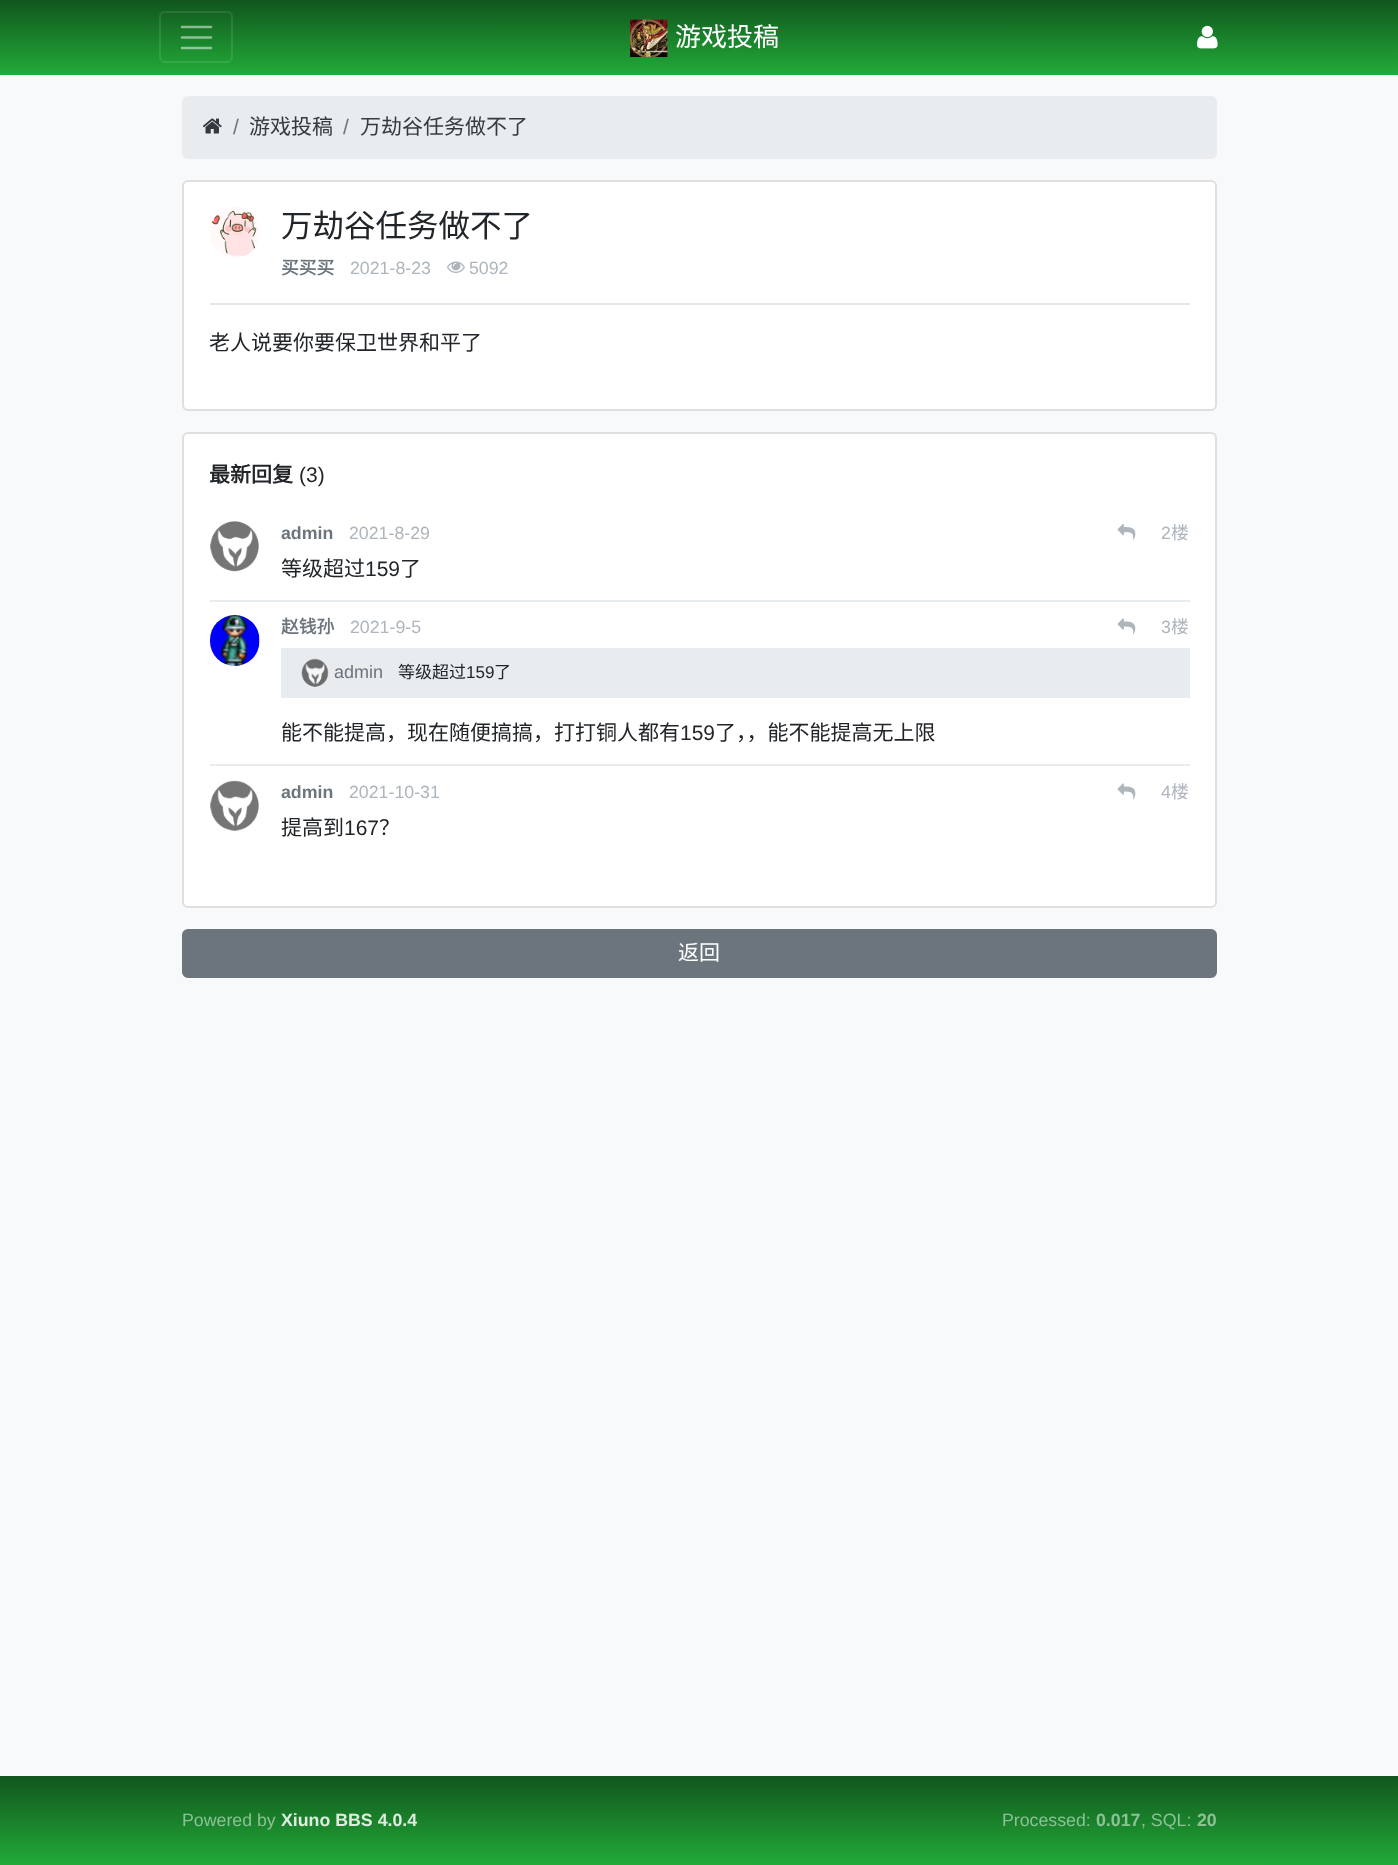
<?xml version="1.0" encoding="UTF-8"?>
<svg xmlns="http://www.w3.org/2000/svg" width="1398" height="1865">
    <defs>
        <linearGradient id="g1" gradientUnits="userSpaceOnUse" x1="699" y1="75" x2="699" y2="0"><stop offset="0" stop-color="#22AB39"/><stop offset="1" stop-color="#11561D"/></linearGradient>
        <linearGradient id="g2" gradientUnits="userSpaceOnUse" x1="699" y1="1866" x2="699" y2="1776"><stop offset="0" stop-color="#22AB39"/><stop offset="1" stop-color="#11561D"/></linearGradient>
    </defs>
    <rect width="100%" height="100%" fill="#F8F9FA"/>
    <rect x="0" y="0" width="1398" height="75" fill="url(#g1)"/>
    <rect x="160" y="12" width="72" height="50" rx="5" fill="none" stroke="#FFFFFF" stroke-opacity="0.1" stroke-width="2"/>
    <path d="M 182 27 H 211 M 182 37.5 H 211 M 182 48 H 211" fill="none" stroke="#FFFFFF" stroke-opacity="0.5" stroke-width="2.6" stroke-linecap="round"/>
    <image x="630" y="19" width="38" height="38" href="img_01.png"/>
    <text x="675" y="46" font-family="Noto Sans CJK SC" font-size="26" fill="#FFFFFF">游戏投稿</text>
    <image x="1197" y="25" width="21" height="24" href="img_02.png"/>
    <rect x="182" y="96" width="1035" height="63" rx="6" fill="#E9ECEF"/>
    <image x="203" y="118" width="19" height="16" href="img_03.png"/>
    <text x="233" y="134" font-family="Liberation Sans" font-size="21" fill="#6C757D">/</text>
    <text x="249" y="134" font-family="Noto Sans CJK SC" font-size="21" fill="#343A40">游戏投稿</text>
    <text x="343" y="134" font-family="Liberation Sans" font-size="21" fill="#6C757D">/</text>
    <text x="360" y="134" font-family="Noto Sans CJK SC" font-size="21" fill="#343A40">万劫谷任务做不了</text>
    <rect x="183" y="181" width="1033" height="229" rx="5" fill="#FFFFFF" stroke="#DFDFDF" stroke-width="2"/>
    <image x="210" y="207" width="49" height="51" href="img_04.png"/>
    <text x="281" y="237" font-family="Noto Sans CJK SC" font-size="31.5" fill="#212529">万劫谷任务做不了</text>
    <text x="281" y="274" font-family="Noto Sans CJK SC" font-size="17.75" font-weight="700" fill="#6C757D">买买买</text>
    <text x="350" y="274" font-family="Liberation Sans" font-size="17.75" fill="#ADB5BD">2021-8-23</text>
    <image x="447" y="261" width="18" height="12" href="img_05.png"/>
    <text x="469" y="274" font-family="Liberation Sans" font-size="17.75" fill="#ADB5BD">5092</text>
    <rect x="210" y="303" width="980" height="2" fill="#E6E6E6"/>
    <text x="209" y="350" font-family="Noto Sans CJK SC" font-size="21" fill="#212529">老人说要你要保卫世界和平了</text>
    <rect x="183" y="433" width="1033" height="474" rx="5" fill="#FFFFFF" stroke="#DFDFDF" stroke-width="2"/>
    <text x="209" y="482" font-family="Noto Sans CJK SC" font-size="21" font-weight="700" fill="#212529">最新回复</text>
    <text x="299" y="482" font-family="Liberation Sans" font-size="21" fill="#212529">(3)</text>
    <rect x="210" y="600" width="980" height="2" fill="#E9ECEF"/>
    <image x="210" y="521" width="49" height="51" href="img_06.png"/>
    <text x="281" y="539" font-family="Liberation Sans" font-size="17.75" font-weight="700" fill="#6C757D">admin</text>
    <text x="349" y="539" font-family="Liberation Sans" font-size="17.75" fill="#ADB5BD">2021-8-29</text>
    <image x="1117" y="523" width="19" height="17" href="img_07.png"/>
    <text x="1161" y="539" font-family="Liberation Sans" font-size="17.75" fill="#ADB5BD">2</text>
    <text x="1171" y="539" font-family="Noto Sans CJK SC" font-size="17.75" fill="#ADB5BD">楼</text>
    <text x="281" y="576" font-family="Noto Sans CJK SC" font-size="21" fill="#212529">等级超过</text>
    <text x="365" y="576" font-family="Liberation Sans" font-size="21" fill="#212529">159</text>
    <text x="400" y="576" font-family="Noto Sans CJK SC" font-size="21" fill="#212529">了</text>
    <rect x="210" y="764" width="980" height="2" fill="#E9ECEF"/>
    <image x="210" y="615" width="50" height="51" href="img_08.png"/>
    <text x="281" y="633" font-family="Noto Sans CJK SC" font-size="17.75" font-weight="700" fill="#6C757D">赵钱孙</text>
    <text x="350" y="633" font-family="Liberation Sans" font-size="17.75" fill="#ADB5BD">2021-9-5</text>
    <image x="1117" y="618" width="19" height="17" href="img_09.png"/>
    <text x="1161" y="633" font-family="Liberation Sans" font-size="17.75" fill="#ADB5BD">3</text>
    <text x="1171" y="633" font-family="Noto Sans CJK SC" font-size="17.75" fill="#ADB5BD">楼</text>
    <rect x="281" y="648" width="909" height="50" fill="#E9ECEF"/>
    <image x="301" y="658" width="28" height="29" href="img_10.png"/>
    <text x="334" y="678" font-family="Liberation Sans" font-size="18" fill="#6C757D">admin</text>
    <text x="398" y="678" font-family="Noto Sans CJK SC" font-size="17" fill="#212529">等级超过</text>
    <text x="466" y="678" font-family="Liberation Sans" font-size="17" fill="#212529">159</text>
    <text x="494" y="678" font-family="Noto Sans CJK SC" font-size="17" fill="#212529">了</text>
    <text x="281" y="740" font-family="Noto Sans CJK SC" font-size="21" fill="#212529">能不能提高，现在随便搞搞，打打铜人都有</text>
    <text x="680" y="740" font-family="Liberation Sans" font-size="21" fill="#212529">159</text>
    <text x="715" y="740" font-family="Noto Sans CJK SC" font-size="21" fill="#212529">了，，能不能提高无上限</text>
    <image x="210" y="780" width="49" height="51" href="img_11.png"/>
    <text x="281" y="798" font-family="Liberation Sans" font-size="17.75" font-weight="700" fill="#6C757D">admin</text>
    <text x="349" y="798" font-family="Liberation Sans" font-size="17.75" fill="#ADB5BD">2021-10-31</text>
    <image x="1117" y="783" width="19" height="17" href="img_09.png"/>
    <text x="1161" y="798" font-family="Liberation Sans" font-size="17.75" fill="#ADB5BD">4</text>
    <text x="1171" y="798" font-family="Noto Sans CJK SC" font-size="17.75" fill="#ADB5BD">楼</text>
    <text x="281" y="835" font-family="Noto Sans CJK SC" font-size="21" fill="#212529">提高到</text>
    <text x="344" y="835" font-family="Liberation Sans" font-size="21" fill="#212529">167</text>
    <text x="379" y="835" font-family="Noto Sans CJK SC" font-size="21" fill="#212529">？</text>
    <rect x="183" y="930" width="1033" height="47" rx="5" fill="#6C757D" stroke="#6C757D" stroke-width="2"/>
    <text x="678" y="960" font-family="Noto Sans CJK SC" font-size="21" fill="#FFFFFF">返回</text>
    <rect x="0" y="1776" width="1398" height="89" fill="url(#g2)"/>
    <text x="182" y="1826" font-family="Liberation Sans" font-size="17.75" fill="#8CC095">Powered by</text>
    <text x="281" y="1826" font-family="Liberation Sans" font-size="17.75" font-weight="700" fill="#DDECDF">Xiuno BBS 4.0.4</text>
    <text x="1002" y="1826" font-family="Liberation Sans" font-size="17.75" fill="#8CC095">Processed:</text>
    <text x="1096" y="1826" font-family="Liberation Sans" font-size="17.75" font-weight="700" fill="#8CC095">0.017</text>
    <text x="1141" y="1826" font-family="Liberation Sans" font-size="17.75" fill="#8CC095">, SQL:</text>
    <text x="1197" y="1826" font-family="Liberation Sans" font-size="17.75" font-weight="700" fill="#8CC095">20</text>
</svg>
